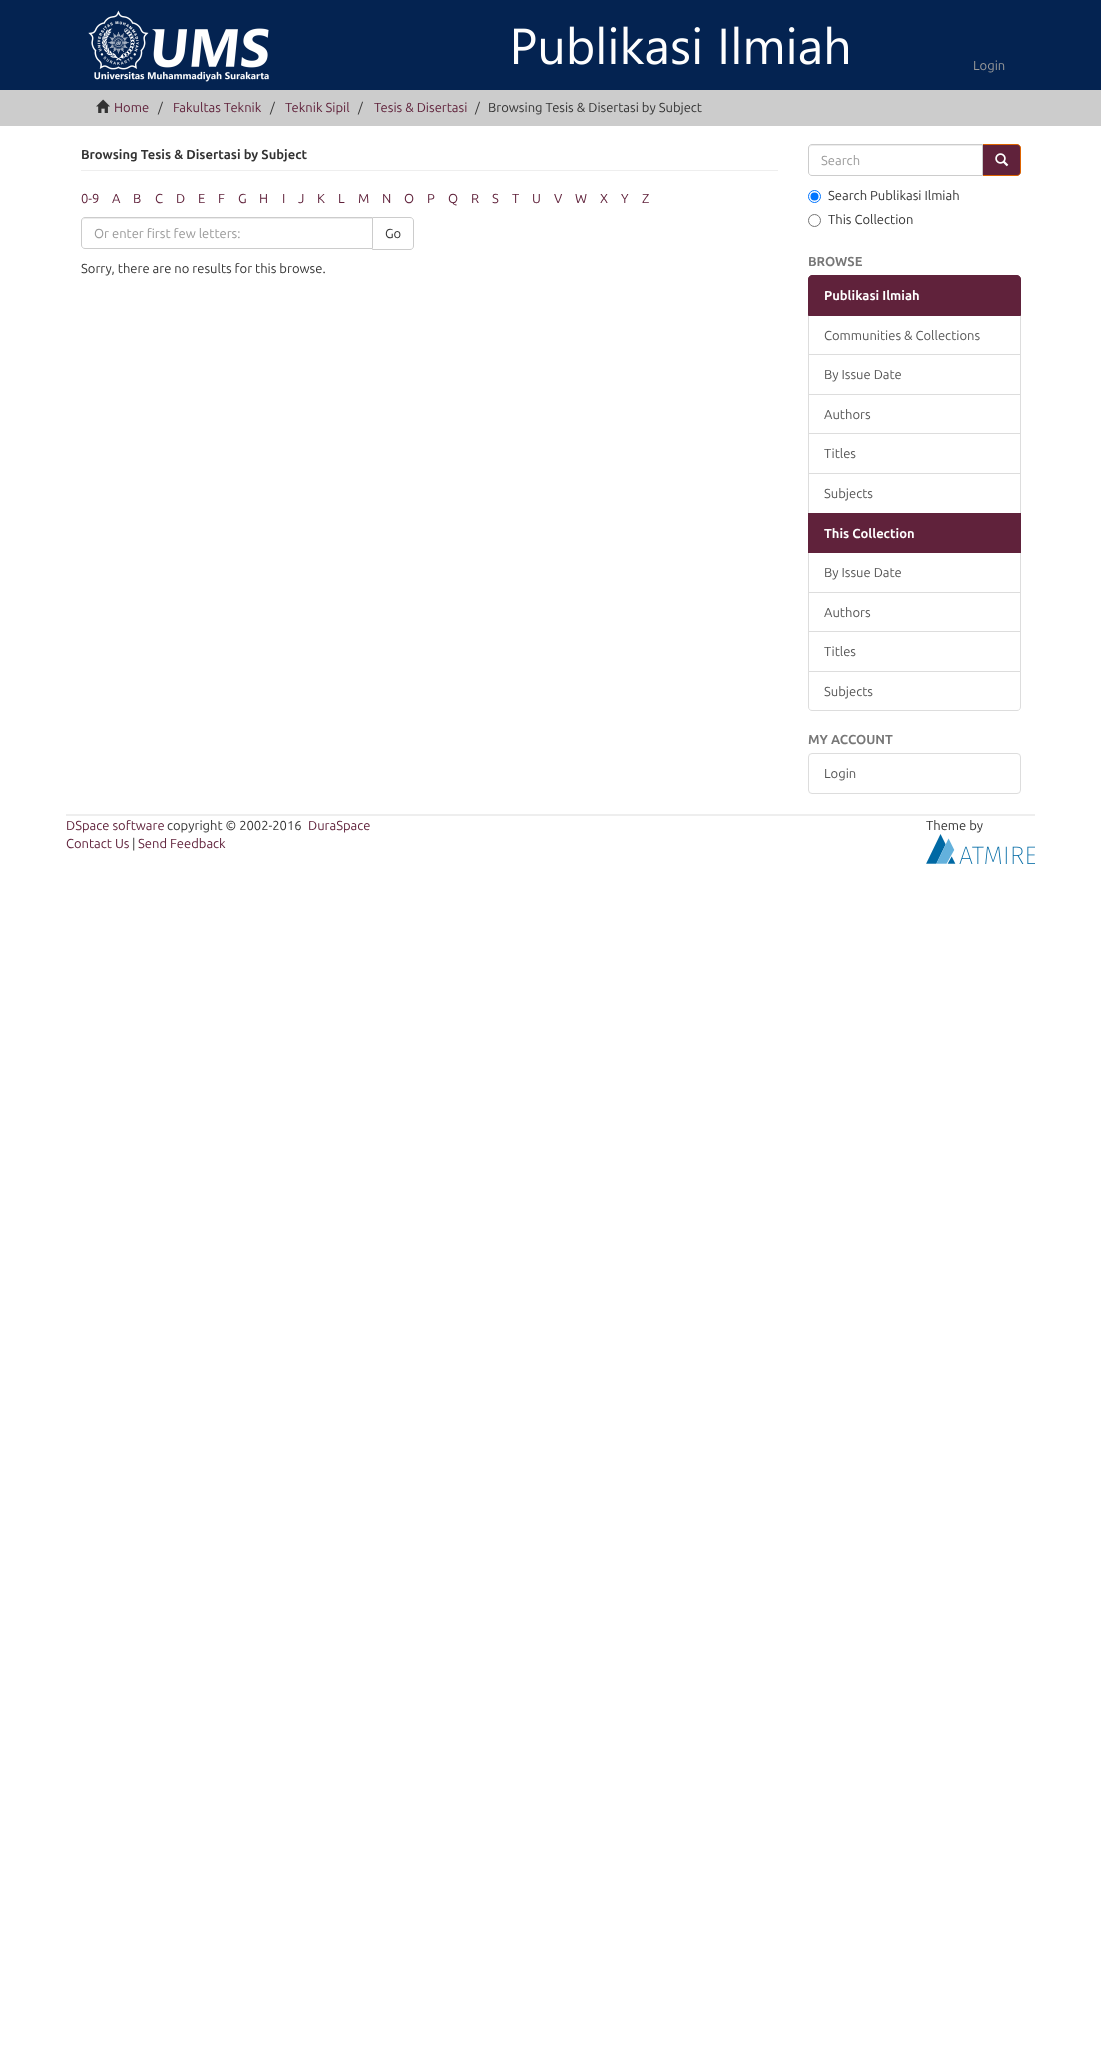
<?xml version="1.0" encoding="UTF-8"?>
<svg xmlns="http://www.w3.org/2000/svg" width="1101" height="2058">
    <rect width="100%" height="100%" fill="#FFFFFF"/>
    <rect x="0" y="0" width="1101" height="90" fill="#042351"/>
    <image x="88" y="10" width="760" height="72" href="img_01.png"/>
    <text x="973" y="70" font-family="Ubuntu" font-size="13" fill="#999999">Login</text>
    <rect x="0" y="90" width="1101" height="36" fill="#CCCCCC"/>
    <image x="96" y="99" width="14" height="14" href="img_02.png"/>
    <text x="114" y="112" font-family="Ubuntu" font-size="13" fill="#60223B">Home</text>
    <text x="158" y="112" font-family="Ubuntu" font-size="13" fill="#333333">/</text>
    <text x="173" y="112" font-family="Ubuntu" font-size="13" fill="#60223B">Fakultas Teknik</text>
    <text x="270" y="112" font-family="Ubuntu" font-size="13" fill="#333333">/</text>
    <text x="285" y="112" font-family="Ubuntu" font-size="13" fill="#60223B">Teknik Sipil</text>
    <text x="358" y="112" font-family="Ubuntu" font-size="13" fill="#333333">/</text>
    <text x="374" y="112" font-family="Ubuntu" font-size="13" fill="#60223B">Tesis &amp; Disertasi</text>
    <text x="475" y="112" font-family="Ubuntu" font-size="13" fill="#333333">/</text>
    <text x="488" y="112" font-family="Ubuntu" font-size="13" fill="#333333">Browsing Tesis &amp; Disertasi by Subject</text>
    <rect x="81" y="170" width="697" height="1" fill="#EEEEEE"/>
    <text x="81" y="159" font-family="Ubuntu" font-size="13" font-weight="700" fill="#333333">Browsing Tesis &amp; Disertasi by Subject</text>
    <text x="81" y="203" font-family="Ubuntu" font-size="13" fill="#60223B">0-9</text>
    <text x="112" y="203" font-family="Ubuntu" font-size="13" fill="#60223B">A</text>
    <text x="133" y="203" font-family="Ubuntu" font-size="13" fill="#60223B">B</text>
    <text x="155" y="203" font-family="Ubuntu" font-size="13" fill="#60223B">C</text>
    <text x="176" y="203" font-family="Ubuntu" font-size="13" fill="#60223B">D</text>
    <text x="198" y="203" font-family="Ubuntu" font-size="13" fill="#60223B">E</text>
    <text x="218" y="203" font-family="Ubuntu" font-size="13" fill="#60223B">F</text>
    <text x="238" y="203" font-family="Ubuntu" font-size="13" fill="#60223B">G</text>
    <text x="259" y="203" font-family="Ubuntu" font-size="13" fill="#60223B">H</text>
    <text x="282" y="203" font-family="Ubuntu" font-size="13" fill="#60223B">I</text>
    <text x="298" y="203" font-family="Ubuntu" font-size="13" fill="#60223B">J</text>
    <text x="317" y="203" font-family="Ubuntu" font-size="13" fill="#60223B">K</text>
    <text x="338" y="203" font-family="Ubuntu" font-size="13" fill="#60223B">L</text>
    <text x="358" y="203" font-family="Ubuntu" font-size="13" fill="#60223B">M</text>
    <text x="382" y="203" font-family="Ubuntu" font-size="13" fill="#60223B">N</text>
    <text x="404" y="203" font-family="Ubuntu" font-size="13" fill="#60223B">O</text>
    <text x="427" y="203" font-family="Ubuntu" font-size="13" fill="#60223B">P</text>
    <text x="448" y="203" font-family="Ubuntu" font-size="13" fill="#60223B">Q</text>
    <text x="471" y="203" font-family="Ubuntu" font-size="13" fill="#60223B">R</text>
    <text x="492" y="203" font-family="Ubuntu" font-size="13" fill="#60223B">S</text>
    <text x="512" y="203" font-family="Ubuntu" font-size="13" fill="#60223B">T</text>
    <text x="532" y="203" font-family="Ubuntu" font-size="13" fill="#60223B">U</text>
    <text x="554" y="203" font-family="Ubuntu" font-size="13" fill="#60223B">V</text>
    <text x="575" y="203" font-family="Ubuntu" font-size="13" fill="#60223B">W</text>
    <text x="600" y="203" font-family="Ubuntu" font-size="13" fill="#60223B">X</text>
    <text x="621" y="203" font-family="Ubuntu" font-size="13" fill="#60223B">Y</text>
    <text x="642" y="203" font-family="Ubuntu" font-size="13" fill="#60223B">Z</text>
    <path d="M 372.5 217.5 H 410 C 412 217.5 413.5 219 413.5 221 V 246 C 413.5 248 412 249.5 410 249.5 H 372.5 Z" fill="none" stroke="#CCCCCC"/>
    <path d="M 85 217 H 373 V 249 H 85 C 83 249 81 247 81 245 V 221 C 81 219 83 217 85 217 Z" fill="#FFFFFF"/>
    <path d="M 85 219 H 372 V 218 H 85 C 83 218 82 220 82 222 C 82 220 83 219 85 219 Z" fill="#ECECEC"/>
    <path d="M 85 217.5 H 372.5 V 248.5 H 85 C 83 248.5 81.5 247 81.5 245 V 221 C 81.5 219 83 217.5 85 217.5 Z" fill="none" stroke="#CCCCCC"/>
    <text x="94" y="238" font-family="Ubuntu" font-size="13" fill="#999999">Or enter first few letters:</text>
    <text x="385" y="238" font-family="Ubuntu" font-size="13" fill="#333333">Go</text>
    <text x="81" y="273" font-family="Ubuntu" font-size="13" fill="#333333">Sorry, there are no results for this browse.</text>
    <path d="M 982.5 144.5 H 1017 C 1019 144.5 1020.5 146 1020.5 148 V 172 C 1020.5 174 1019 175.5 1017 175.5 H 982.5 Z" fill="#60223B" stroke="#DE6400"/>
    <path d="M 812 144 H 983 V 176 H 812 C 810 176 808 174 808 172 V 148 C 808 146 810 144 812 144 Z" fill="#FFFFFF"/>
    <path d="M 812 146 H 982 V 145 H 811 C 809 146 809 147 809 149 C 809 147 810 146 812 146 Z" fill="#ECECEC"/>
    <path d="M 812 144.5 H 982.5 V 175.5 H 812 C 810 175.5 808.5 174 808.5 172 V 148 C 808.5 146 810 144.5 812 144.5 Z" fill="none" stroke="#CCCCCC"/>
    <text x="821" y="165" font-family="Ubuntu" font-size="13" fill="#999999">Search</text>
    <image x="995" y="153" width="14" height="14" href="img_03.png"/>
    <circle cx="814.5" cy="196.5" r="6" fill="none" stroke="#0075FF"/>
    <circle cx="814.5" cy="196.5" r="4" fill="#0075FF"/>
    <text x="828" y="200" font-family="Ubuntu" font-size="13" fill="#333333">Search Publikasi Ilmiah</text>
    <circle cx="814.5" cy="220.5" r="6" fill="none" stroke="#767676"/>
    <text x="828" y="224" font-family="Ubuntu" font-size="13" fill="#333333">This Collection</text>
    <text x="808" y="266" font-family="Ubuntu" font-size="13" font-weight="700" fill="#777777">BROWSE</text>
    <rect x="808.5" y="315.5" width="212" height="39" fill="none" stroke="#DDDDDD"/>
    <path d="M 812 275.5 H 1017 C 1019 275.5 1020.5 277 1020.5 279 V 315.5 H 808.5 V 279 C 808.5 277 810 275.5 812 275.5 Z" fill="#60223B" stroke="#60223B"/>
    <text x="824" y="300" font-family="Ubuntu" font-size="13" font-weight="700" fill="#FFFFFF">Publikasi Ilmiah</text>
    <text x="824" y="340" font-family="Ubuntu" font-size="13" fill="#555555">Communities &amp; Collections</text>
    <rect x="808.5" y="354.5" width="212" height="40" fill="none" stroke="#DDDDDD"/>
    <text x="824" y="379" font-family="Ubuntu" font-size="13" fill="#555555">By Issue Date</text>
    <rect x="808.5" y="394.5" width="212" height="39" fill="none" stroke="#DDDDDD"/>
    <text x="824" y="419" font-family="Ubuntu" font-size="13" fill="#555555">Authors</text>
    <rect x="808.5" y="433.5" width="212" height="40" fill="none" stroke="#DDDDDD"/>
    <text x="824" y="458" font-family="Ubuntu" font-size="13" fill="#555555">Titles</text>
    <rect x="808.5" y="473.5" width="212" height="40" fill="none" stroke="#DDDDDD"/>
    <text x="824" y="498" font-family="Ubuntu" font-size="13" fill="#555555">Subjects</text>
    <rect x="808.5" y="552.5" width="212" height="40" fill="none" stroke="#DDDDDD"/>
    <rect x="808" y="513" width="213" height="40" fill="#60223B"/>
    <text x="824" y="538" font-family="Ubuntu" font-size="13" font-weight="700" fill="#FFFFFF">This Collection</text>
    <text x="824" y="577" font-family="Ubuntu" font-size="13" fill="#555555">By Issue Date</text>
    <rect x="808.5" y="592.5" width="212" height="39" fill="none" stroke="#DDDDDD"/>
    <text x="824" y="617" font-family="Ubuntu" font-size="13" fill="#555555">Authors</text>
    <rect x="808.5" y="631.5" width="212" height="40" fill="none" stroke="#DDDDDD"/>
    <text x="824" y="656" font-family="Ubuntu" font-size="13" fill="#555555">Titles</text>
    <path d="M 808.5 671.5 H 1020.5 V 707 C 1020.5 709 1019 710.5 1017 710.5 H 812 C 810 710.5 808.5 709 808.5 707 Z" fill="#FFFFFF" stroke="#DDDDDD"/>
    <text x="824" y="696" font-family="Ubuntu" font-size="13" fill="#555555">Subjects</text>
    <text x="808" y="744" font-family="Ubuntu" font-size="13" font-weight="700" fill="#777777">MY ACCOUNT</text>
    <rect x="808.5" y="753.5" width="212" height="40" rx="3.5" fill="none" stroke="#DDDDDD"/>
    <text x="824" y="778" font-family="Ubuntu" font-size="13" fill="#555555">Login</text>
    <rect x="66" y="814" width="969" height="2" fill="#EEEEEE"/>
    <text x="66" y="830" font-family="Ubuntu" font-size="13" fill="#60223B">DSpace software</text>
    <text x="167" y="830" font-family="Ubuntu" font-size="13" fill="#333333">copyright © 2002-2016</text>
    <text x="308" y="830" font-family="Ubuntu" font-size="13" fill="#60223B">DuraSpace</text>
    <text x="66" y="848" font-family="Ubuntu" font-size="13" fill="#60223B">Contact Us</text>
    <text x="132" y="848" font-family="Ubuntu" font-size="13" fill="#333333">|</text>
    <text x="138" y="848" font-family="Ubuntu" font-size="13" fill="#60223B">Send Feedback</text>
    <text x="926" y="830" font-family="Ubuntu" font-size="13" fill="#333333">Theme by</text>
    <image x="926" y="834" width="109" height="30" href="img_04.png"/>
</svg>
